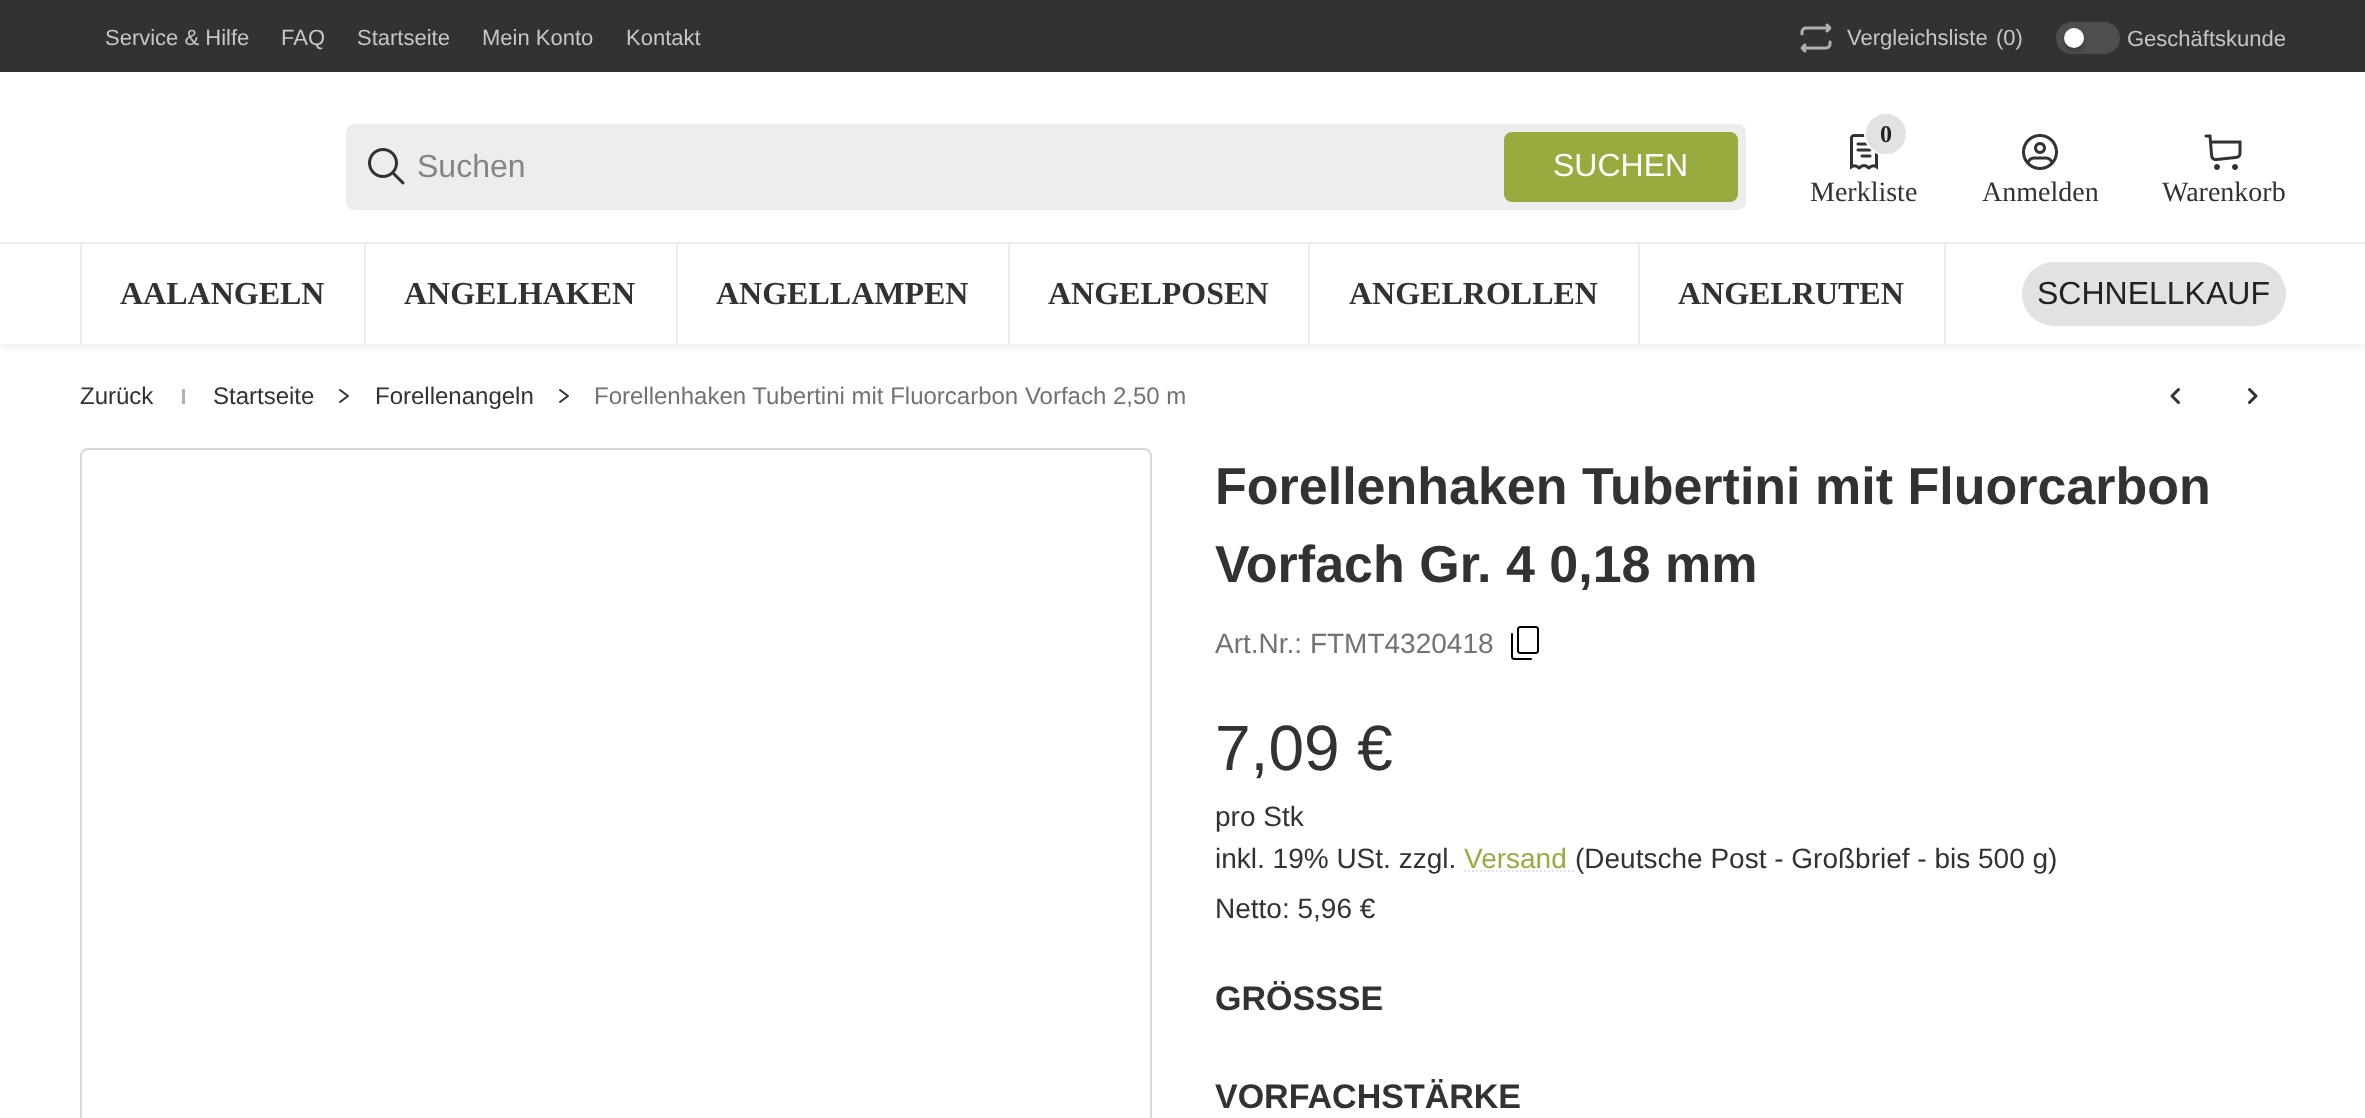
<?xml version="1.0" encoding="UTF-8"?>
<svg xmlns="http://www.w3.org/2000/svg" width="2365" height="1118">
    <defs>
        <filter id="blur1" x="-50%" y="-200%" width="200%" height="500%"><feGaussianBlur stdDeviation="2"/></filter>
        <clipPath id="clip1"><rect x="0" y="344" width="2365" height="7"/></clipPath>
        <filter id="blur2" x="-50%" y="-200%" width="200%" height="500%"><feGaussianBlur stdDeviation="6"/></filter>
    </defs>
    <rect width="100%" height="100%" fill="#FFFFFF"/>
    <rect x="0" y="0" width="2365" height="72" fill="#323232"/>
    <text x="105" y="45" font-family="Liberation Sans" font-size="22" fill="#C6C6C6">Service &amp; Hilfe</text>
    <text x="281" y="45" font-family="Liberation Sans" font-size="22" fill="#C6C6C6">FAQ</text>
    <text x="357" y="45" font-family="Liberation Sans" font-size="22" fill="#C6C6C6">Startseite</text>
    <text x="482" y="45" font-family="Liberation Sans" font-size="22" fill="#C6C6C6">Mein Konto</text>
    <text x="626" y="45" font-family="Liberation Sans" font-size="22" fill="#C6C6C6">Kontakt</text>
    <image x="1800" y="23" width="32" height="30" href="img_01.png"/>
    <text x="1847" y="45" font-family="Liberation Sans" font-size="22" fill="#C6C6C6">Vergleichsliste</text>
    <text x="1996" y="45" font-family="Liberation Sans" font-size="22" fill="#C6C6C6">(0)</text>
    <rect x="2057" y="23" width="62" height="30" rx="15" fill="#4E4E4E" stroke="#4E4E4E" stroke-width="2"/>
    <rect x="2064" y="32" width="20" height="20" rx="10" fill="#000000" fill-opacity="0.24" filter="url(#blur1)"/>
    <circle cx="2074" cy="38" r="10" fill="#FFFFFF"/>
    <text x="2127" y="46" font-family="Liberation Sans" font-size="22" fill="#C6C6C6">Geschäftskunde</text>
    <rect x="346" y="124" width="1400" height="86" rx="8" fill="#EDEDED"/>
    <image x="368" y="148" width="37" height="37" href="img_02.png"/>
    <text x="417" y="177" font-family="Liberation Sans" font-size="32" fill="#848484">Suchen</text>
    <rect x="1505" y="133" width="232" height="68" rx="7" fill="#98AB3F" stroke="#98AB3F" stroke-width="2"/>
    <text x="1553" y="176" font-family="Liberation Sans" font-size="32" fill="#FFFFFF">SUCHEN</text>
    <image x="1850" y="134" width="28" height="36" href="img_03.png"/>
    <circle cx="1886" cy="134" r="21" fill="#E2E2E2" stroke="#FFFFFF" stroke-width="2"/>
    <text x="1880" y="142" font-family="Liberation Serif" font-size="24" font-weight="700" fill="#222222">0</text>
    <text x="1810" y="201" font-family="Liberation Serif" font-size="28" fill="#323232">Merkliste</text>
    <image x="2022" y="134" width="36" height="36" href="img_04.png"/>
    <text x="1982" y="201" font-family="Liberation Serif" font-size="28" fill="#323232">Anmelden</text>
    <image x="2204" y="134" width="38" height="36" href="img_05.png"/>
    <text x="2162" y="201" font-family="Liberation Serif" font-size="28" fill="#323232">Warenkorb</text>
    <rect x="0" y="242" width="2365" height="2" fill="#EDEDED"/>
    <rect x="80" y="244" width="2" height="100" fill="#EDEDED"/>
    <text x="120" y="304" font-family="Liberation Serif" font-size="32" font-weight="700" fill="#323232">AALANGELN</text>
    <rect x="364" y="244" width="2" height="100" fill="#EDEDED"/>
    <text x="404" y="304" font-family="Liberation Serif" font-size="32" font-weight="700" fill="#323232">ANGELHAKEN</text>
    <rect x="676" y="244" width="2" height="100" fill="#EDEDED"/>
    <text x="716" y="304" font-family="Liberation Serif" font-size="32" font-weight="700" fill="#323232">ANGELLAMPEN</text>
    <rect x="1008" y="244" width="2" height="100" fill="#EDEDED"/>
    <text x="1048" y="304" font-family="Liberation Serif" font-size="32" font-weight="700" fill="#323232">ANGELPOSEN</text>
    <rect x="1308" y="244" width="2" height="100" fill="#EDEDED"/>
    <text x="1349" y="304" font-family="Liberation Serif" font-size="32" font-weight="700" fill="#323232">ANGELROLLEN</text>
    <rect x="1638" y="244" width="2" height="100" fill="#EDEDED"/>
    <text x="1678" y="304" font-family="Liberation Serif" font-size="32" font-weight="700" fill="#323232">ANGELRUTEN</text>
    <rect x="1944" y="244" width="2" height="100" fill="#EDEDED"/>
    <rect x="2022" y="262" width="264" height="64" rx="32" fill="#E2E2E2"/>
    <text x="2037" y="304" font-family="Liberation Sans" font-size="32" fill="#222222">SCHNELLKAUF</text>
    <g clip-path="url(#clip1)">
        <rect x="0" y="328" width="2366" height="20" fill="#000000" fill-opacity="0.07" filter="url(#blur2)"/>
    </g>
    <text x="80" y="404" font-family="Liberation Sans" font-size="24" fill="#323232">Zurück</text>
    <rect x="182" y="389" width="3" height="15" fill="#B1B1B1"/>
    <text x="213" y="404" font-family="Liberation Sans" font-size="24" fill="#323232">Startseite</text>
    <path d="M 340 402 L 348 396 L 340 390" fill="none" stroke="#323232" stroke-width="2" stroke-linecap="round" stroke-linejoin="round"/>
    <text x="375" y="404" font-family="Liberation Sans" font-size="24" fill="#323232">Forellenangeln</text>
    <path d="M 560 402 L 568 396 L 560 390" fill="none" stroke="#323232" stroke-width="2" stroke-linecap="round" stroke-linejoin="round"/>
    <text x="594" y="404" font-family="Liberation Sans" font-size="24" fill="#727272">Forellenhaken Tubertini mit Fluorcarbon Vorfach 2,50 m</text>
    <path d="M 2178.5 402.5 L 2172 396 L 2178.5 389.5" fill="none" stroke="#323232" stroke-width="3" stroke-linecap="round" stroke-linejoin="round"/>
    <path d="M 2249.5 402.5 L 2256 396 L 2249.5 389.5" fill="none" stroke="#323232" stroke-width="3" stroke-linecap="round" stroke-linejoin="round"/>
    <rect x="81" y="449" width="1070" height="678" rx="7" fill="none" stroke="#D7D7D7" stroke-width="2"/>
    <text font-family="Liberation Sans" font-size="52" font-weight="700" fill="#323232">
        <tspan x="1215" y="504">Forellenhaken Tubertini mit Fluorcarbon</tspan>
        <tspan x="1215" y="582">Vorfach Gr. 4 0,18 mm</tspan>
    </text>
    <text x="1215" y="653" font-family="Liberation Sans" font-size="28" fill="#727272">Art.Nr.: FTMT4320418</text>
    <image x="1511" y="626" width="28" height="34" href="img_06.png"/>
    <text x="1215" y="770" font-family="Liberation Sans" font-size="64" fill="#323232">7,09 €</text>
    <text font-family="Liberation Sans" font-size="28" fill="#323232">
        <tspan x="1215" y="826">pro Stk</tspan>
        <tspan x="1215" y="868">inkl. 19% USt. zzgl.</tspan>
    </text>
    <text x="1464" y="868" font-family="Liberation Sans" font-size="28" fill="#98AB3F">Versand</text>
    <path d="M 1464 871 H 1574.5" fill="none" stroke="#E2E2E2" stroke-width="2" stroke-dasharray="2 2"/>
    <text x="1575" y="868" font-family="Liberation Sans" font-size="28" fill="#323232">(Deutsche Post - Großbrief - bis 500 g)</text>
    <text x="1215" y="918" font-family="Liberation Sans" font-size="28" fill="#323232">Netto: 5,96 €</text>
    <text x="1215" y="1010" font-family="Liberation Sans" font-size="34" font-weight="700" fill="#323232">GRÖSSSE</text>
    <text x="1215" y="1108" font-family="Liberation Sans" font-size="34" font-weight="700" fill="#323232">VORFACHSTÄRKE</text>
</svg>
